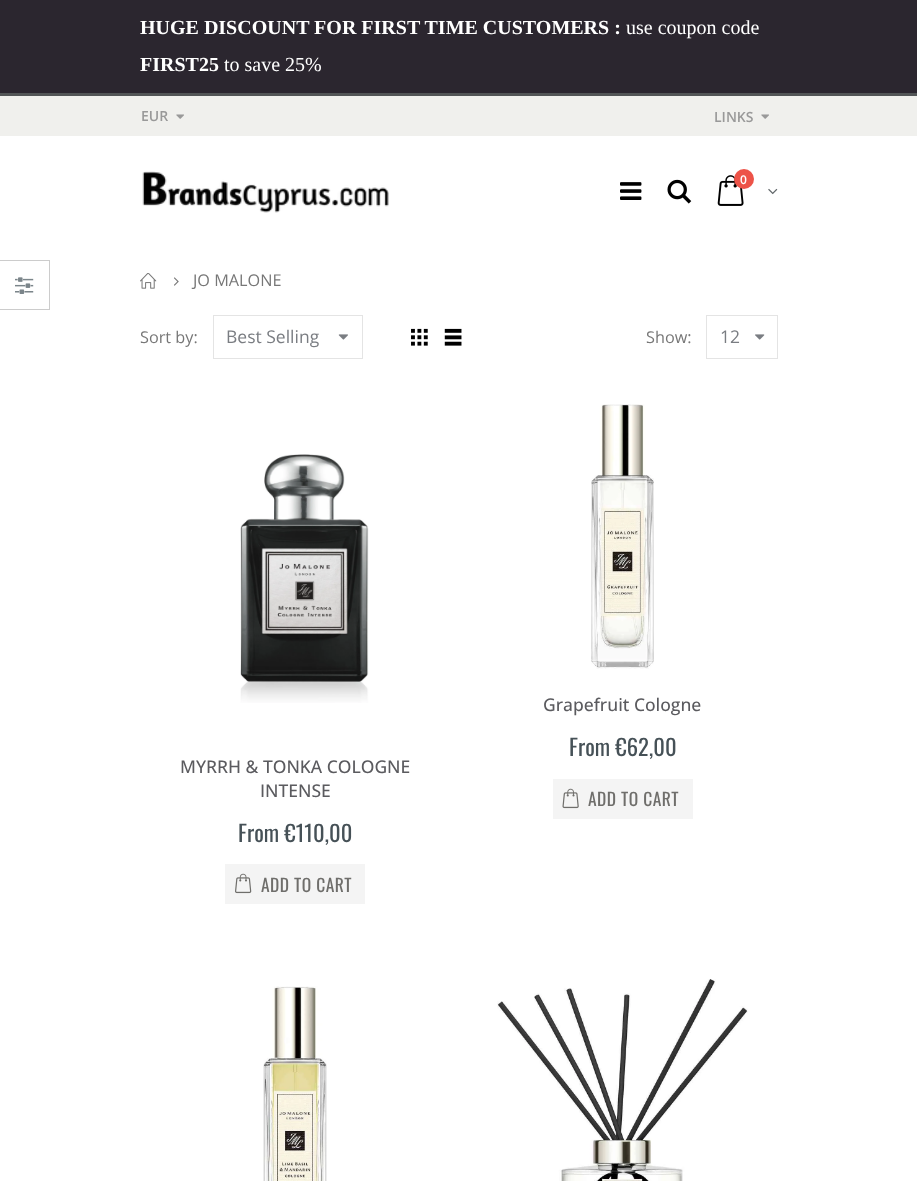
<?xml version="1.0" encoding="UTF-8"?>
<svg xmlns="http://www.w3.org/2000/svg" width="917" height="1181">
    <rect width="100%" height="100%" fill="#FFFFFF"/>
    <rect x="0" y="0" width="917" height="93" fill="#2B262F"/>
    <text x="140" y="34" font-family="Liberation Serif" font-size="20" font-weight="700" fill="#FFFFFF">HUGE DISCOUNT FOR FIRST TIME CUSTOMERS :</text>
    <text x="626" y="34" font-family="Liberation Serif" font-size="20" fill="#FFFFFF">use coupon code</text>
    <text x="140" y="71" font-family="Liberation Serif" font-size="20" font-weight="700" fill="#FFFFFF">FIRST25</text>
    <text x="224" y="71" font-family="Liberation Serif" font-size="20" fill="#FFFFFF">to save 25%</text>
    <rect x="0" y="93" width="917" height="3" fill="#525556"/>
    <rect x="0" y="96" width="917" height="40" fill="#F0F0ED"/>
    <text x="141" y="121" font-family="Open Sans" font-size="14" font-weight="600" fill="#999999">EUR</text>
    <image x="176" y="114" width="8" height="5" href="img_01.png"/>
    <text x="714" y="122" font-family="Open Sans" font-size="14" font-weight="600" fill="#999999">LINKS</text>
    <image x="761" y="114" width="8" height="5" href="img_01.png"/>
    <image x="142" y="171" width="247" height="42" href="img_02.png"/>
    <image x="620" y="182" width="22" height="18" href="img_03.png"/>
    <image x="667" y="179" width="25" height="25" href="img_04.png"/>
    <image x="717" y="175" width="27" height="31" href="img_05.png"/>
    <circle cx="744" cy="179" r="10" fill="#ED5348"/>
    <text x="740" y="184" font-family="Open Sans" font-size="12" font-weight="600" fill="#FFFFFF">0</text>
    <image x="768" y="188" width="10" height="7" href="img_06.png"/>
    <image x="140" y="273" width="17" height="16" href="img_07.png"/>
    <image x="174" y="277" width="5" height="9" href="img_08.png"/>
    <text x="193" y="286" font-family="Open Sans" font-size="16.25" fill="#777777">JO MALONE</text>
    <rect x="0" y="260" width="50" height="1" fill="#CCCCCC"/>
    <rect x="49" y="260" width="1" height="50" fill="#CCCCCC"/>
    <rect x="0" y="309" width="50" height="1" fill="#CCCCCC"/>
    <image x="15" y="277" width="19" height="17" href="img_09.png"/>
    <text x="140" y="343" font-family="Open Sans" font-size="16.25" fill="#777777">Sort by:</text>
    <rect x="213.5" y="315.5" width="149" height="43" fill="none" stroke="#E4E4E4"/>
    <text x="226" y="343" font-family="Open Sans" font-size="17.5" fill="#7A7D82">Best Selling</text>
    <image x="338" y="334" width="10" height="6" href="img_10.png"/>
    <image x="411" y="328" width="17" height="18" href="img_11.png"/>
    <image x="444" y="328" width="18" height="18" href="img_12.png"/>
    <text x="646" y="343" font-family="Open Sans" font-size="16.25" fill="#777777">Show:</text>
    <rect x="706.5" y="315.5" width="71" height="43" fill="none" stroke="#E4E4E4"/>
    <text x="720" y="343" font-family="Open Sans" font-size="17.5" fill="#7A7D82">12</text>
    <image x="755" y="334" width="10" height="6" href="img_13.png"/>
    <image x="240" y="454" width="129" height="249" href="img_14.png"/>
    <text x="180" y="773" font-family="Open Sans" font-size="17.5" font-weight="500" fill="#5B5B5F">MYRRH &amp; TONKA COLOGNE</text>
    <text x="260" y="797" font-family="Open Sans" font-size="17.5" font-weight="500" fill="#5B5B5F">INTENSE</text>
    <text x="238" y="842" font-family="Oswald" font-size="22.5" letter-spacing="0.1" fill="#465157">From €110,00</text>
    <rect x="225" y="864" width="140" height="40" fill="#F4F4F4"/>
    <image x="235" y="873" width="17" height="21" href="img_15.png"/>
    <text x="261" y="892" font-family="Oswald" font-size="17.5" letter-spacing="0.5" fill="#6F6E6B">ADD TO CART</text>
    <image x="591" y="404" width="63" height="265" href="img_16.png"/>
    <text x="543" y="711" font-family="Open Sans" font-size="17.5" font-weight="500" fill="#5B5B5F">Grapefruit Cologne</text>
    <text x="569" y="756" font-family="Oswald" font-size="22.5" letter-spacing="0.1" fill="#465157">From €62,00</text>
    <rect x="553" y="779" width="140" height="40" fill="#F4F4F4"/>
    <image x="562" y="788" width="17" height="21" href="img_17.png"/>
    <text x="588" y="806" font-family="Oswald" font-size="17.5" letter-spacing="0.5" fill="#6F6E6B">ADD TO CART</text>
    <image x="263" y="986" width="64" height="195" href="img_18.png"/>
    <image x="497" y="979" width="251" height="202" href="img_19.png"/>
</svg>
